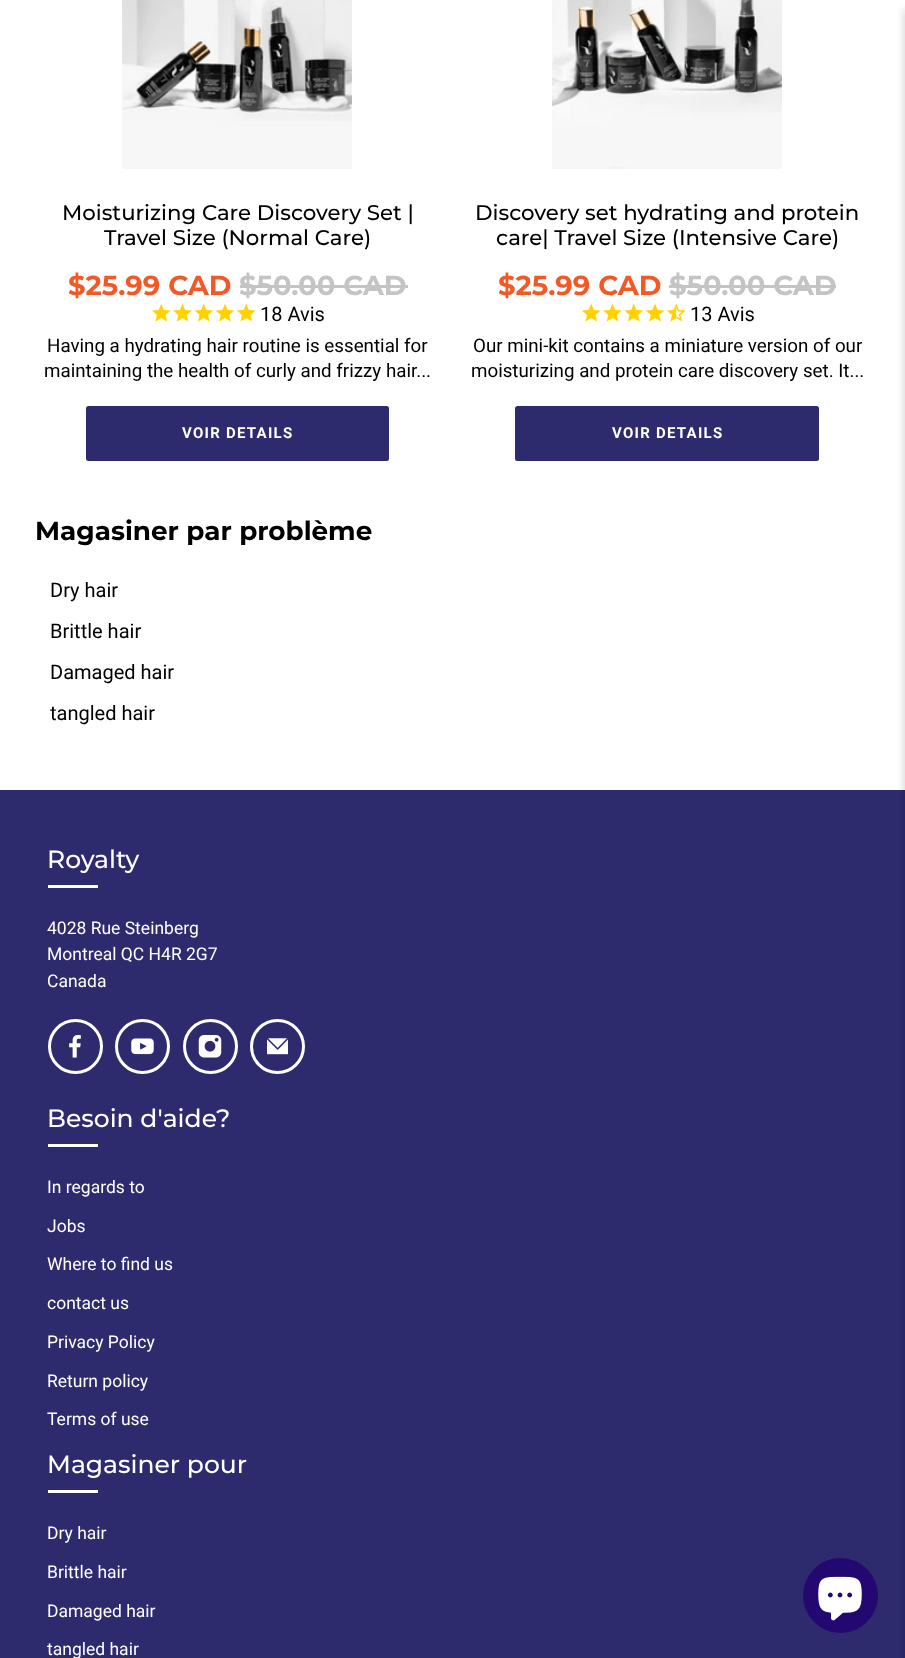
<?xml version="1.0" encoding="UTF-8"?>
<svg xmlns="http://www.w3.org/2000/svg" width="905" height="1658">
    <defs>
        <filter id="blur1" x="-50%" y="-200%" width="200%" height="500%"><feGaussianBlur stdDeviation="5"/></filter>
    </defs>
    <rect width="100%" height="100%" fill="#FFFFFF"/>
    <rect x="0" y="790" width="905" height="868" fill="#2D2A6E"/>
    <rect x="905" y="10" width="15" height="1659" fill="#0A0A0A" fill-opacity="0.1" filter="url(#blur1)"/>
    <image x="122" y="0" width="230" height="169" href="img_01.png"/>
    <text x="62" y="220" font-family="Montserrat" font-size="21.25" font-weight="500" fill="#000000">Moisturizing Care Discovery Set |</text>
    <text x="104" y="245" font-family="Montserrat" font-size="21.25" font-weight="500" fill="#000000">Travel Size (Normal Care)</text>
    <text x="68" y="295" font-family="Montserrat" font-size="27.5" font-weight="700" fill="#F15A26">$25.99 CAD</text>
    <text x="239" y="295" font-family="Montserrat" font-size="27.5" font-weight="700" fill="#C4C4C4">$50.00 CAD</text>
    <rect x="240" y="285" width="168" height="3" fill="#C4C4C4"/>
    <image x="152" y="303" width="19" height="19" href="img_02.png"/>
    <image x="173" y="303" width="19" height="19" href="img_03.png"/>
    <image x="194" y="303" width="19" height="19" href="img_04.png"/>
    <image x="215" y="304" width="20" height="18" href="img_05.png"/>
    <image x="237" y="303" width="19" height="19" href="img_02.png"/>
    <text x="260" y="321" font-family="Roboto" font-size="20" fill="#000000">18 Avis</text>
    <text x="47" y="352" font-family="Roboto" font-size="18.75" fill="#000000">Having a hydrating hair routine is essential for</text>
    <text x="44" y="377" font-family="Roboto" font-size="18.75" fill="#000000">maintaining the health of curly and frizzy hair...</text>
    <rect x="86" y="406" width="303" height="55" rx="2.5" fill="#2D2A6E"/>
    <text x="182" y="438" font-family="Roboto" font-size="15" font-weight="700" letter-spacing="1.25" fill="#FFFFFF">VOIR DETAILS</text>
    <image x="552" y="0" width="230" height="169" href="img_06.png"/>
    <text x="475" y="220" font-family="Montserrat" font-size="21.25" font-weight="500" fill="#000000">Discovery set hydrating and protein</text>
    <text x="496" y="245" font-family="Montserrat" font-size="21.25" font-weight="500" fill="#000000">care| Travel Size (Intensive Care)</text>
    <text x="498" y="295" font-family="Montserrat" font-size="27.5" font-weight="700" fill="#F15A26">$25.99 CAD</text>
    <text x="669" y="295" font-family="Montserrat" font-size="27.5" font-weight="700" fill="#C4C4C4">$50.00 CAD</text>
    <rect x="669" y="285" width="167" height="3" fill="#C4C4C4"/>
    <image x="582" y="303" width="19" height="19" href="img_02.png"/>
    <image x="603" y="303" width="19" height="19" href="img_03.png"/>
    <image x="624" y="303" width="19" height="19" href="img_04.png"/>
    <image x="645" y="304" width="20" height="18" href="img_05.png"/>
    <image x="667" y="303" width="19" height="19" href="img_07.png"/>
    <text x="690" y="321" font-family="Roboto" font-size="20" fill="#000000">13 Avis</text>
    <text x="473" y="352" font-family="Roboto" font-size="18.75" fill="#000000">Our mini-kit contains a miniature version of our</text>
    <text x="471" y="377" font-family="Roboto" font-size="18.75" fill="#000000">moisturizing and protein care discovery set. It...</text>
    <rect x="515" y="406" width="304" height="55" rx="2.5" fill="#2D2A6E"/>
    <text x="612" y="438" font-family="Roboto" font-size="15" font-weight="700" letter-spacing="1.25" fill="#FFFFFF">VOIR DETAILS</text>
    <text x="35" y="540" font-family="Montserrat" font-size="26.25" font-weight="700" fill="#000000">Magasiner par problème</text>
    <text x="50" y="597" font-family="Roboto" font-size="20" fill="#000000">Dry hair</text>
    <text x="50" y="638" font-family="Roboto" font-size="20" fill="#000000">Brittle hair</text>
    <text x="50" y="679" font-family="Roboto" font-size="20" fill="#000000">Damaged hair</text>
    <text x="50" y="720" font-family="Roboto" font-size="20" fill="#000000">tangled hair</text>
    <rect x="905" y="10" width="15" height="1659" fill="#0A0A0A" fill-opacity="0.1" filter="url(#blur1)"/>
    <text x="47" y="868" font-family="Montserrat" font-size="25" font-weight="500" fill="#FFFFFF">Royalty</text>
    <rect x="48" y="885" width="50" height="3" fill="#FFFFFF"/>
    <text font-family="Roboto" font-size="17.5" fill="#FFFFFF">
        <tspan x="47" y="934">4028 Rue Steinberg</tspan>
        <tspan x="47" y="960">Montreal QC H4R 2G7</tspan>
        <tspan x="47" y="987">Canada</tspan>
    </text>
    <circle cx="75.5" cy="1046.5" r="26" fill="none" stroke="#FFFFFF" stroke-width="3"/>
    <image x="69" y="1035" width="12" height="23" href="img_08.png"/>
    <circle cx="142.5" cy="1046.5" r="26" fill="none" stroke="#FFFFFF" stroke-width="3"/>
    <image x="131" y="1038" width="23" height="17" href="img_09.png"/>
    <circle cx="210.5" cy="1046.5" r="26" fill="none" stroke="#FFFFFF" stroke-width="3"/>
    <image x="198" y="1035" width="24" height="23" href="img_10.png"/>
    <circle cx="277.5" cy="1046.5" r="26" fill="none" stroke="#FFFFFF" stroke-width="3"/>
    <image x="267" y="1038" width="21" height="17" href="img_11.png"/>
    <text x="47" y="1127" font-family="Montserrat" font-size="25" font-weight="500" fill="#FFFFFF">Besoin d'aide?</text>
    <rect x="48" y="1144" width="50" height="3" fill="#FFFFFF"/>
    <text x="47" y="1193" font-family="Roboto" font-size="17.5" fill="#FFFFFF">In regards to</text>
    <text x="47" y="1232" font-family="Roboto" font-size="17.5" fill="#FFFFFF">Jobs</text>
    <text x="47" y="1270" font-family="Roboto" font-size="17.5" fill="#FFFFFF">Where to find us</text>
    <text x="47" y="1309" font-family="Roboto" font-size="17.5" fill="#FFFFFF">contact us</text>
    <text x="47" y="1348" font-family="Roboto" font-size="17.5" fill="#FFFFFF">Privacy Policy</text>
    <text x="47" y="1387" font-family="Roboto" font-size="17.5" fill="#FFFFFF">Return policy</text>
    <text x="47" y="1425" font-family="Roboto" font-size="17.5" fill="#FFFFFF">Terms of use</text>
    <text x="47" y="1473" font-family="Montserrat" font-size="25" font-weight="500" fill="#FFFFFF">Magasiner pour</text>
    <rect x="48" y="1490" width="50" height="3" fill="#FFFFFF"/>
    <text x="47" y="1539" font-family="Roboto" font-size="17.5" fill="#FFFFFF">Dry hair</text>
    <text x="47" y="1578" font-family="Roboto" font-size="17.5" fill="#FFFFFF">Brittle hair</text>
    <text x="47" y="1617" font-family="Roboto" font-size="17.5" fill="#FFFFFF">Damaged hair</text>
    <text x="47" y="1655" font-family="Roboto" font-size="17.5" fill="#FFFFFF">tangled hair</text>
    <circle cx="840.5" cy="1595.5" r="37.5" fill="#230871"/>
    <image x="818" y="1576" width="44" height="45" href="img_12.png"/>
</svg>
